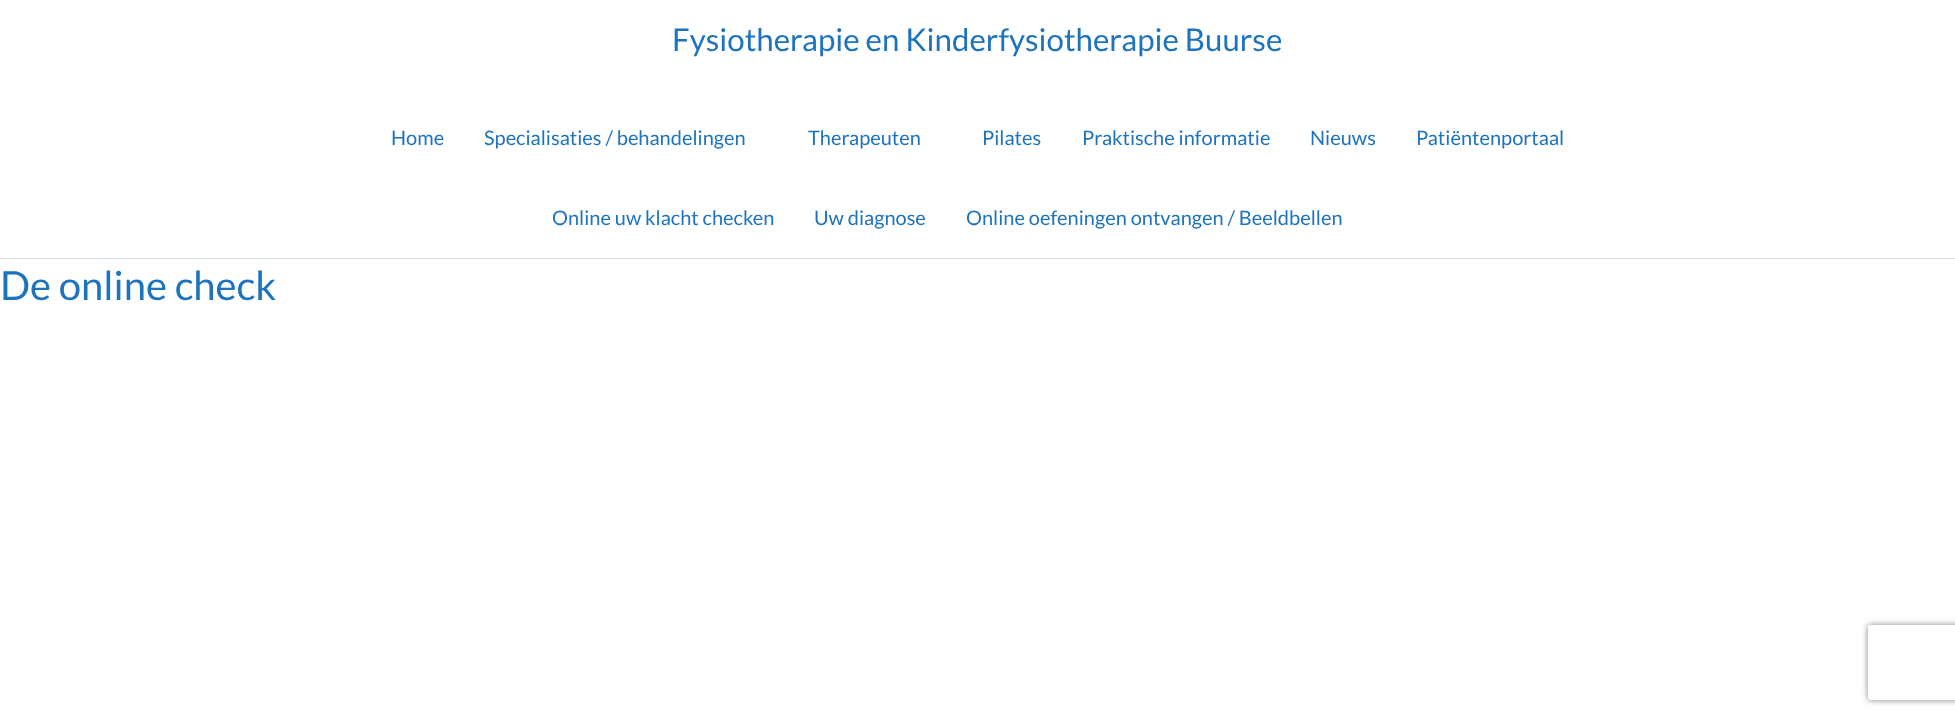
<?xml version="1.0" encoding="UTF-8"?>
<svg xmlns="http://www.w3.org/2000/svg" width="1955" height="717">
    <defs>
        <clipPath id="clip1"><path d="M 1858 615 H 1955 V 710 H 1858 Z M 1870.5 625 H 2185.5 C 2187 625 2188 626 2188 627.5 V 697.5 C 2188 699 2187 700 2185.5 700 H 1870.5 C 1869 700 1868 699 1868 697.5 V 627.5 C 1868 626 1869 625 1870.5 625 Z" clip-rule="evenodd"/></clipPath>
        <filter id="blur1" x="-50%" y="-200%" width="200%" height="500%"><feGaussianBlur stdDeviation="3"/></filter>
    </defs>
    <rect width="100%" height="100%" fill="#FFFFFF"/>
    <rect x="0" y="258" width="1955" height="1" fill="#DDDDDD"/>
    <text x="672" y="51" font-family="Lato" font-size="31.25" fill="#1E73BE">Fysiotherapie en Kinderfysiotherapie Buurse</text>
    <text x="391" y="145" font-family="Lato" font-size="20" fill="#1E73BE">Home</text>
    <text x="484" y="145" font-family="Lato" font-size="20" fill="#1E73BE">Specialisaties / behandelingen</text>
    <text x="808" y="145" font-family="Lato" font-size="20" fill="#1E73BE">Therapeuten</text>
    <text x="982" y="145" font-family="Lato" font-size="20" fill="#1E73BE">Pilates</text>
    <text x="1082" y="145" font-family="Lato" font-size="20" fill="#1E73BE">Praktische informatie</text>
    <text x="1310" y="145" font-family="Lato" font-size="20" fill="#1E73BE">Nieuws</text>
    <text x="1416" y="145" font-family="Lato" font-size="20" fill="#1E73BE">Patiëntenportaal</text>
    <text x="552" y="225" font-family="Lato" font-size="20" fill="#1E73BE">Online uw klacht checken</text>
    <text x="814" y="225" font-family="Lato" font-size="20" fill="#1E73BE">Uw diagnose</text>
    <text x="966" y="225" font-family="Lato" font-size="20" fill="#1E73BE">Online oefeningen ontvangen / Beeldbellen</text>
    <text x="0" y="300" font-family="Lato" font-size="40" fill="#1E73BE">De online check</text>
    <g clip-path="url(#clip1)">
        <rect x="1868" y="625" width="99" height="75" rx="2.5" fill="#808080" filter="url(#blur1)"/>
    </g>
</svg>
